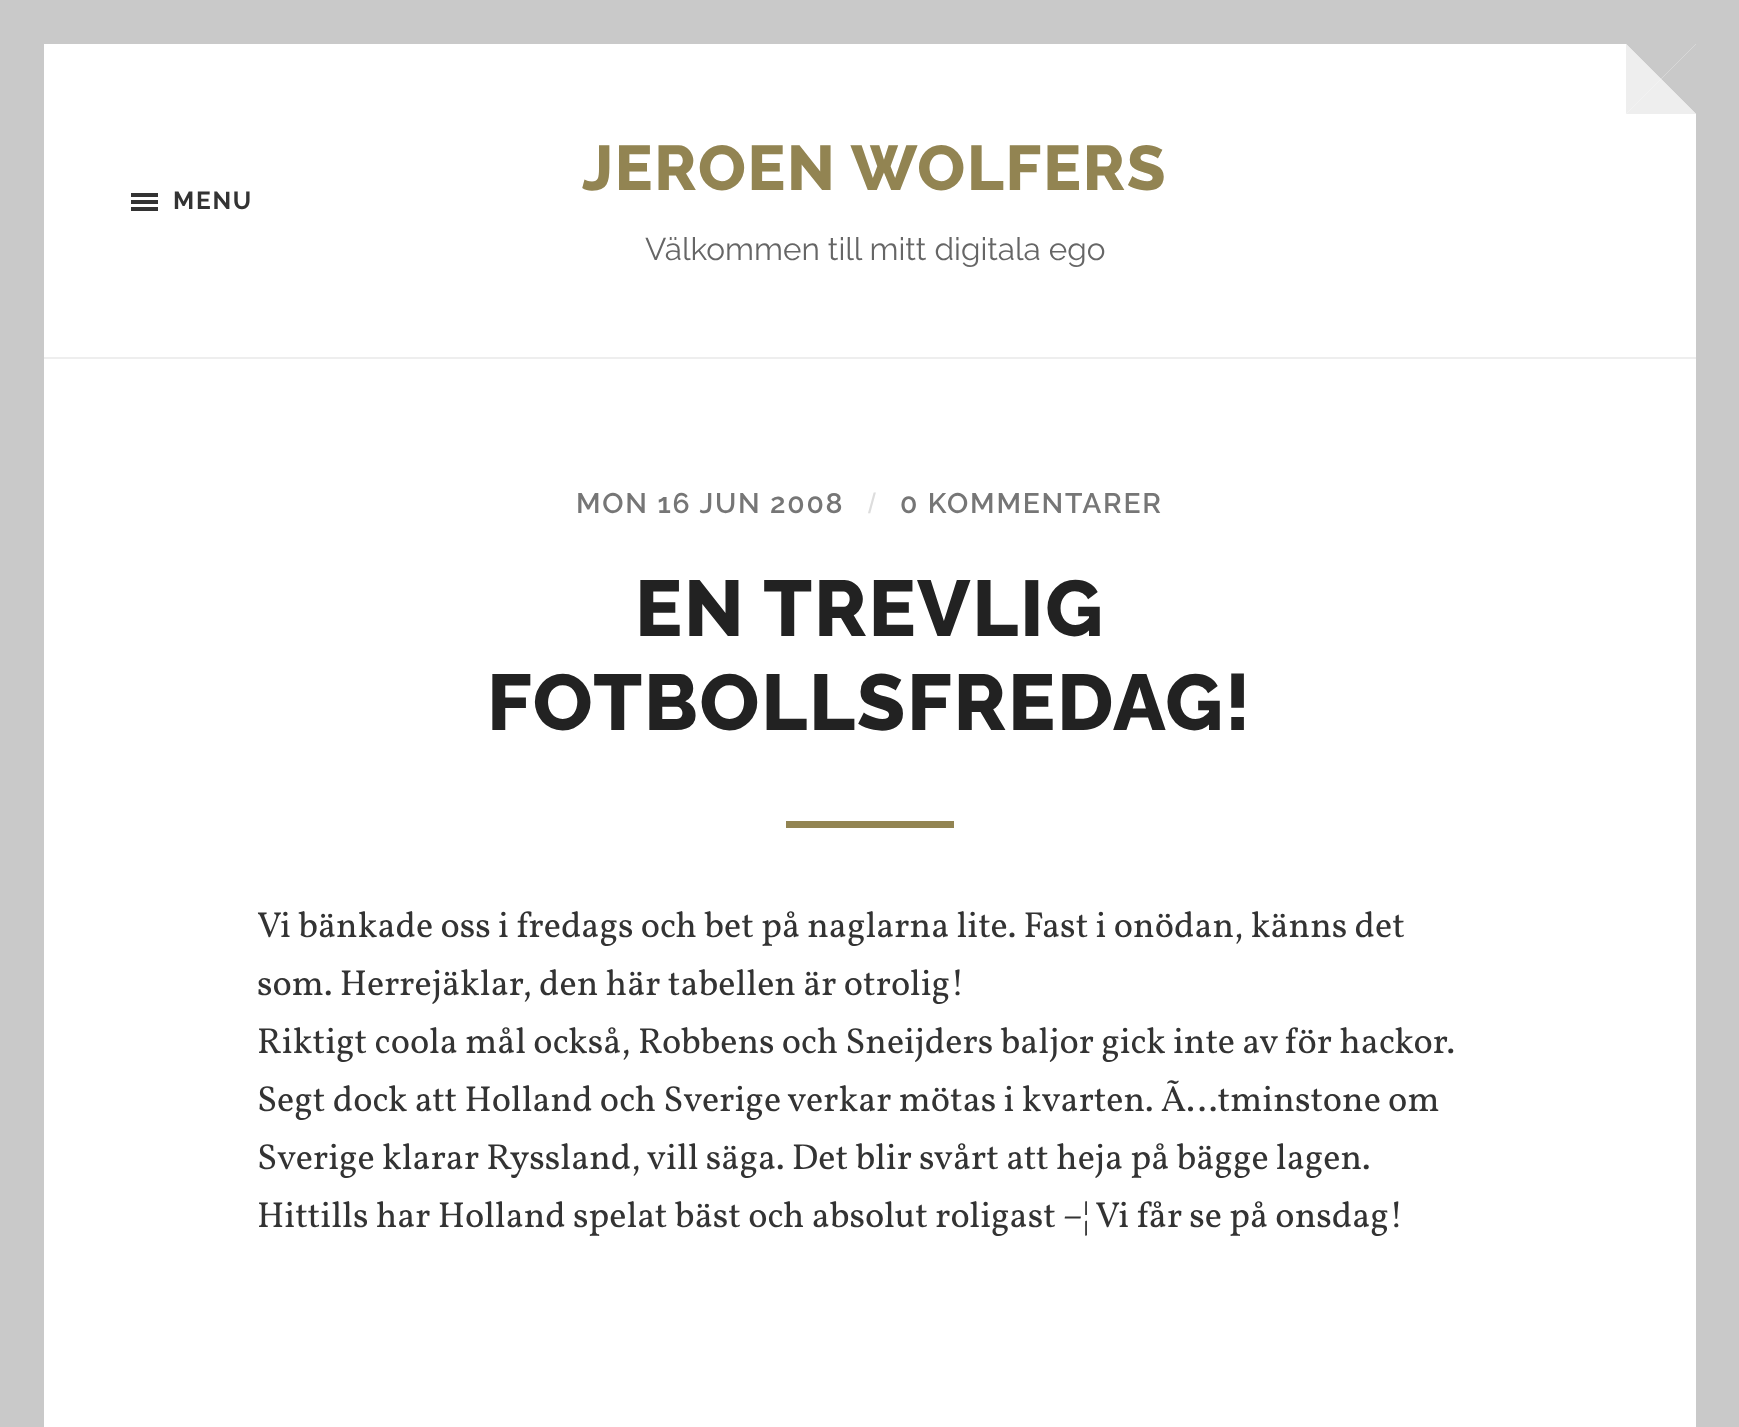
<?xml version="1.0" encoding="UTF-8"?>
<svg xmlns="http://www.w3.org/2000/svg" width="1739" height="1427">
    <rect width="100%" height="100%" fill="#C9C9C9"/>
    <rect x="44" y="44" width="1652" height="1383" fill="#FFFFFF"/>
    <path d="M 1626 44 H 1696 L 1661 79 Z" fill="#C9C9C9"/>
    <path d="M 1696 44 V 114 L 1661 79 Z" fill="#C9C9C9"/>
    <path d="M 1696 114 H 1626 L 1661 79 Z" fill="#EEEEEE"/>
    <path d="M 1626 114 V 44 L 1661 79 Z" fill="#EEEEEE"/>
    <rect x="44" y="357" width="1652" height="2" fill="#EEEEEE"/>
    <rect x="131" y="193" width="27" height="4" fill="#333333"/>
    <rect x="131" y="200" width="27" height="4" fill="#333333"/>
    <rect x="131" y="207" width="27" height="4" fill="#333333"/>
    <text x="173" y="209" font-family="'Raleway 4'" font-size="24.5" font-weight="100" letter-spacing="1.75" fill="#333333">MENU</text>
    <text x="582" y="190" font-family="'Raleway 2'" font-size="63" font-weight="100" letter-spacing="1.75" fill="#928452">JEROEN WOLFERS</text>
    <text x="645" y="260" font-family="'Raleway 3'" font-size="31.5" font-weight="100" fill="#666666">Välkommen till mitt digitala ego</text>
    <text x="576" y="513" font-family="Raleway" font-size="28.25" font-weight="100" letter-spacing="1.75" fill="#767676">MON 16 JUN 2008</text>
    <text x="868" y="513" font-family="Liberation Sans" font-size="28.25" letter-spacing="1.75" fill="#DDDDDD">/</text>
    <text x="900" y="513" font-family="Raleway" font-size="28.25" font-weight="100" letter-spacing="1.75" fill="#767676">0 KOMMENTARER</text>
    <text x="635" y="636" font-family="'Raleway 2'" font-size="78.75" font-weight="100" letter-spacing="1.75" fill="#222222">EN TREVLIG</text>
    <text x="487" y="730" font-family="'Raleway 2'" font-size="78.75" font-weight="100" letter-spacing="1.75" fill="#222222">FOTBOLLSFREDAG!</text>
    <rect x="786" y="821" width="168" height="7" fill="#928452"/>
    <text font-family="Vollkorn" font-size="36.25" fill="#333333">
        <tspan x="257" y="937">Vi bänkade oss i fredags och bet på naglarna lite. Fast i onödan, känns det</tspan>
        <tspan x="257" y="995">som. Herrejäklar, den här tabellen är otrolig!</tspan>
        <tspan x="257" y="1053">Riktigt coola mål också, Robbens och Sneijders baljor gick inte av för hackor.</tspan>
        <tspan x="257" y="1111">Segt dock att Holland och Sverige verkar mötas i kvarten. Ã…tminstone om</tspan>
        <tspan x="257" y="1169">Sverige klarar Ryssland, vill säga. Det blir svårt att heja på bägge lagen.</tspan>
        <tspan x="257" y="1227">Hittills har Holland spelat bäst och absolut roligast –¦ Vi får se på onsdag!</tspan>
    </text>
</svg>
